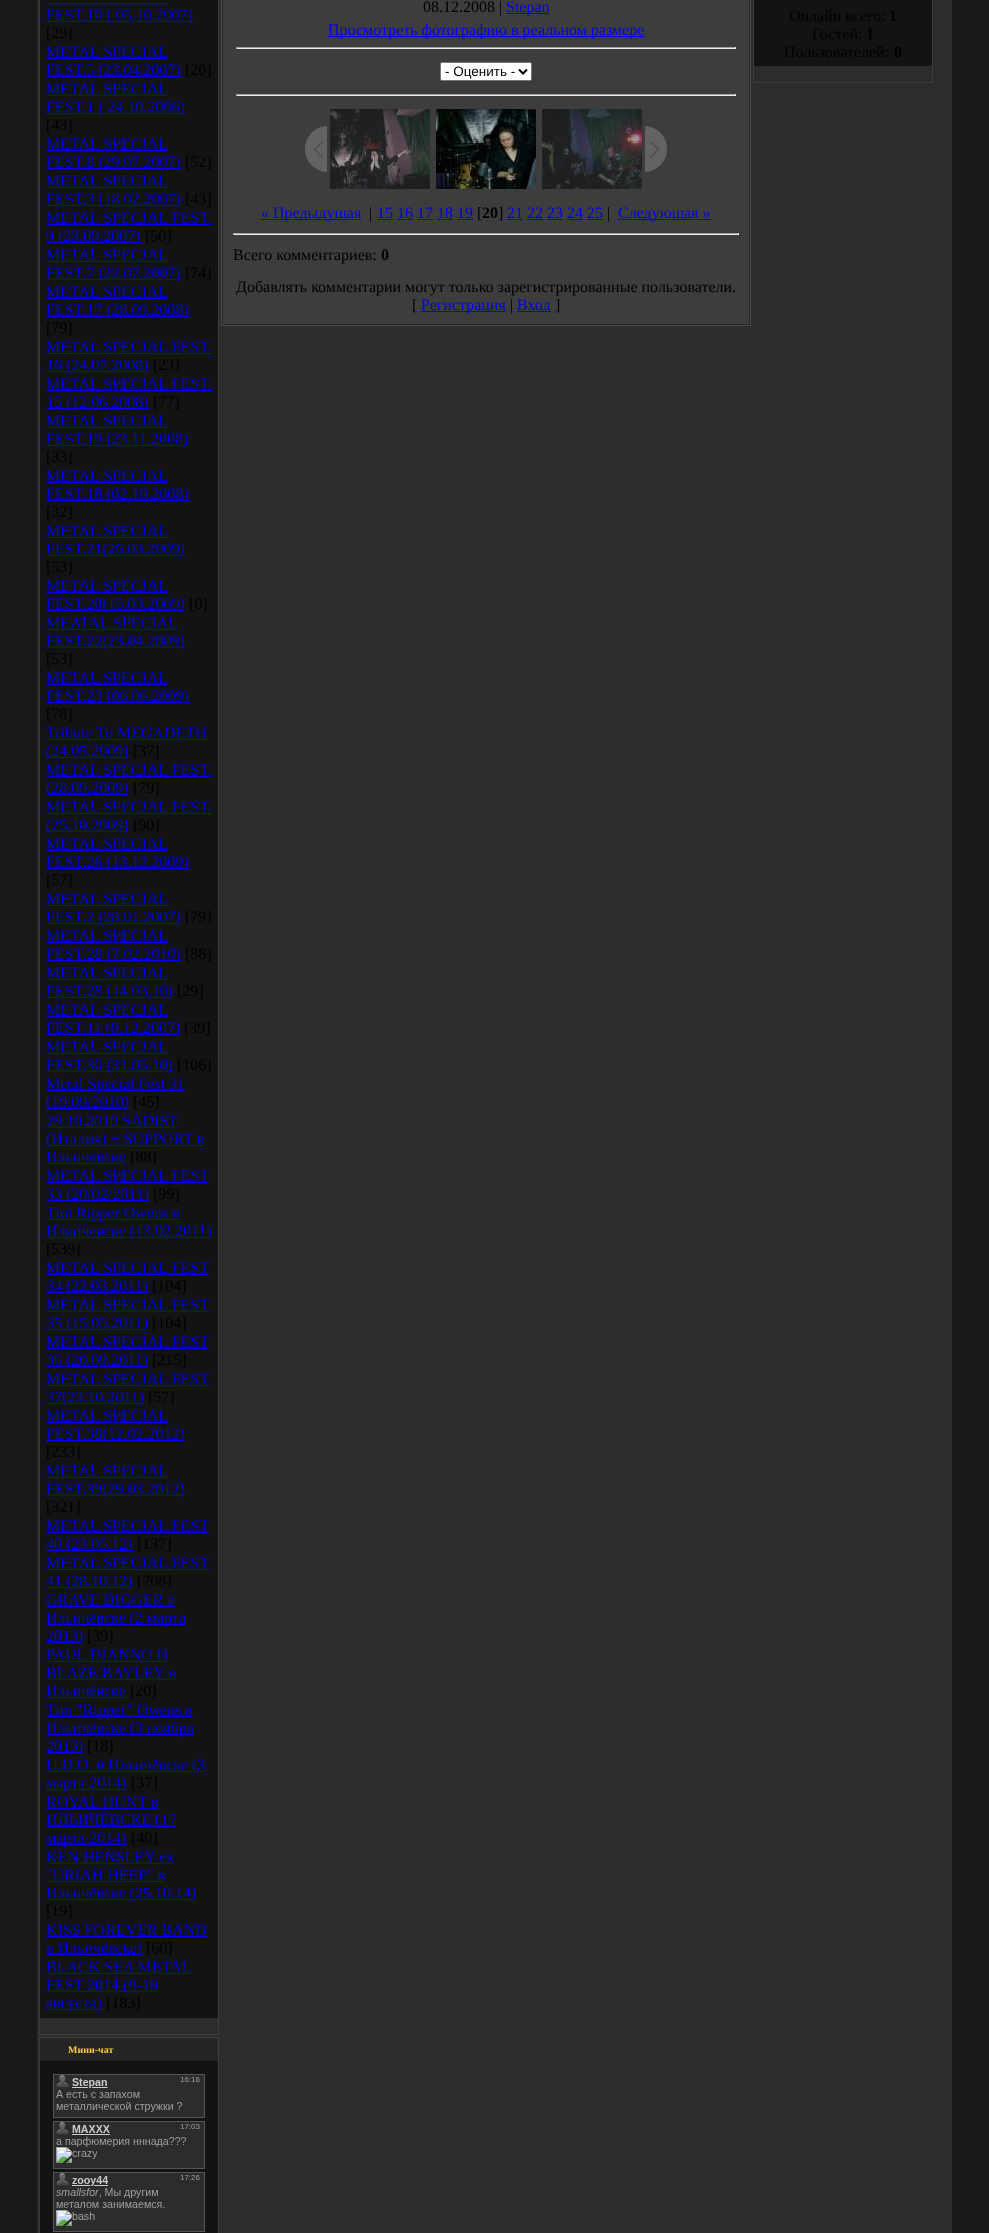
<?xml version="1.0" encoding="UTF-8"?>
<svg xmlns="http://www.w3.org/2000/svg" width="989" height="2233">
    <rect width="100%" height="100%" fill="#191919"/>
    <rect x="37" y="0" width="915" height="2233" fill="#2C2C2C"/>
    <rect x="39.5" y="-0.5" width="179" height="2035" fill="none" stroke="#3C3C3C"/>
    <rect x="40" y="0" width="178" height="2018" fill="#131313"/>
    <rect x="46" y="21" width="147" height="1" fill="#0000EE"/>
    <text x="46" y="20" font-family="Liberation Serif" font-size="16" fill="#0000EE">FEST.10 ( 05.10.2007)</text>
    <rect x="46" y="3" width="122" height="1" fill="#0000EE"/>
    <text x="46" y="38" font-family="Liberation Serif" font-size="16" fill="#000000">[29]</text>
    <text x="46" y="57" font-family="Liberation Serif" font-size="16" fill="#0000EE">METAL SPECIAL</text>
    <rect x="46" y="58" width="122" height="1" fill="#0000EE"/>
    <rect x="46" y="76" width="135" height="1" fill="#0000EE"/>
    <text x="46" y="75" font-family="Liberation Serif" font-size="16" fill="#0000EE">FEST.5 (23.04.2007)</text>
    <text x="185" y="75" font-family="Liberation Serif" font-size="16" fill="#000000">[20]</text>
    <text x="46" y="94" font-family="Liberation Serif" font-size="16" fill="#0000EE">METAL SPECIAL</text>
    <rect x="46" y="95" width="122" height="1" fill="#0000EE"/>
    <rect x="46" y="113" width="139" height="1" fill="#0000EE"/>
    <text x="46" y="112" font-family="Liberation Serif" font-size="16" fill="#0000EE">FEST.1 ( 24.10.2006)</text>
    <text x="46" y="130" font-family="Liberation Serif" font-size="16" fill="#000000">[43]</text>
    <text x="46" y="149" font-family="Liberation Serif" font-size="16" fill="#0000EE">METAL SPECIAL</text>
    <rect x="46" y="150" width="122" height="1" fill="#0000EE"/>
    <rect x="46" y="168" width="135" height="1" fill="#0000EE"/>
    <text x="46" y="167" font-family="Liberation Serif" font-size="16" fill="#0000EE">FEST.8 (29.07.2007)</text>
    <text x="185" y="167" font-family="Liberation Serif" font-size="16" fill="#000000">[52]</text>
    <text x="46" y="186" font-family="Liberation Serif" font-size="16" fill="#0000EE">METAL SPECIAL</text>
    <rect x="46" y="187" width="122" height="1" fill="#0000EE"/>
    <rect x="46" y="205" width="135" height="1" fill="#0000EE"/>
    <text x="46" y="204" font-family="Liberation Serif" font-size="16" fill="#0000EE">FEST.3 (18.02.2007)</text>
    <text x="185" y="204" font-family="Liberation Serif" font-size="16" fill="#000000">[43]</text>
    <text x="46" y="223" font-family="Liberation Serif" font-size="16" fill="#0000EE">METAL SPECIAL FEST.</text>
    <rect x="46" y="224" width="166" height="1" fill="#0000EE"/>
    <rect x="46" y="242" width="95" height="1" fill="#0000EE"/>
    <text x="46" y="241" font-family="Liberation Serif" font-size="16" fill="#0000EE">9 (23.09.2007)</text>
    <text x="145" y="241" font-family="Liberation Serif" font-size="16" fill="#000000">[50]</text>
    <text x="46" y="260" font-family="Liberation Serif" font-size="16" fill="#0000EE">METAL SPECIAL</text>
    <rect x="46" y="261" width="122" height="1" fill="#0000EE"/>
    <rect x="46" y="279" width="135" height="1" fill="#0000EE"/>
    <text x="46" y="278" font-family="Liberation Serif" font-size="16" fill="#0000EE">FEST.7 (22.07.2007)</text>
    <text x="185" y="278" font-family="Liberation Serif" font-size="16" fill="#000000">[74]</text>
    <text x="46" y="297" font-family="Liberation Serif" font-size="16" fill="#0000EE">METAL SPECIAL</text>
    <rect x="46" y="298" width="122" height="1" fill="#0000EE"/>
    <rect x="46" y="316" width="143" height="1" fill="#0000EE"/>
    <text x="46" y="315" font-family="Liberation Serif" font-size="16" fill="#0000EE">FEST.17 (28.09.2008)</text>
    <text x="46" y="333" font-family="Liberation Serif" font-size="16" fill="#000000">[79]</text>
    <text x="46" y="352" font-family="Liberation Serif" font-size="16" fill="#0000EE">METAL SPECIAL FEST.</text>
    <rect x="46" y="353" width="166" height="1" fill="#0000EE"/>
    <rect x="46" y="371" width="103" height="1" fill="#0000EE"/>
    <text x="46" y="370" font-family="Liberation Serif" font-size="16" fill="#0000EE">16 (24.07.2008)</text>
    <text x="153" y="370" font-family="Liberation Serif" font-size="16" fill="#000000">[23]</text>
    <text x="46" y="389" font-family="Liberation Serif" font-size="16" fill="#0000EE">METAL SPECIAL FEST.</text>
    <rect x="46" y="390" width="166" height="1" fill="#0000EE"/>
    <rect x="46" y="408" width="103" height="1" fill="#0000EE"/>
    <text x="46" y="407" font-family="Liberation Serif" font-size="16" fill="#0000EE">15 (12.06.2008)</text>
    <text x="153" y="407" font-family="Liberation Serif" font-size="16" fill="#000000">[77]</text>
    <text x="46" y="426" font-family="Liberation Serif" font-size="16" fill="#0000EE">METAL SPECIAL</text>
    <rect x="46" y="427" width="122" height="1" fill="#0000EE"/>
    <rect x="46" y="445" width="142" height="1" fill="#0000EE"/>
    <text x="46" y="444" font-family="Liberation Serif" font-size="16" fill="#0000EE">FEST.19 (23.11.2008)</text>
    <text x="46" y="462" font-family="Liberation Serif" font-size="16" fill="#000000">[33]</text>
    <text x="46" y="481" font-family="Liberation Serif" font-size="16" fill="#0000EE">METAL SPECIAL</text>
    <rect x="46" y="482" width="122" height="1" fill="#0000EE"/>
    <rect x="46" y="500" width="143" height="1" fill="#0000EE"/>
    <text x="46" y="499" font-family="Liberation Serif" font-size="16" fill="#0000EE">FEST.18 (02.10.2008)</text>
    <text x="46" y="517" font-family="Liberation Serif" font-size="16" fill="#000000">[32]</text>
    <text x="46" y="536" font-family="Liberation Serif" font-size="16" fill="#0000EE">METAL SPECIAL</text>
    <rect x="46" y="537" width="122" height="1" fill="#0000EE"/>
    <rect x="46" y="555" width="139" height="1" fill="#0000EE"/>
    <text x="46" y="554" font-family="Liberation Serif" font-size="16" fill="#0000EE">FEST.21(26.03.2009)</text>
    <text x="46" y="572" font-family="Liberation Serif" font-size="16" fill="#000000">[53]</text>
    <text x="46" y="591" font-family="Liberation Serif" font-size="16" fill="#0000EE">METAL SPECIAL</text>
    <rect x="46" y="592" width="122" height="1" fill="#0000EE"/>
    <rect x="46" y="610" width="139" height="1" fill="#0000EE"/>
    <text x="46" y="609" font-family="Liberation Serif" font-size="16" fill="#0000EE">FEST.20(15.03.2009)</text>
    <text x="189" y="609" font-family="Liberation Serif" font-size="16" fill="#000000">[0]</text>
    <text x="46" y="628" font-family="Liberation Serif" font-size="16" fill="#0000EE">MEATAL SPECIAL</text>
    <rect x="46" y="629" width="132" height="1" fill="#0000EE"/>
    <rect x="46" y="647" width="139" height="1" fill="#0000EE"/>
    <text x="46" y="646" font-family="Liberation Serif" font-size="16" fill="#0000EE">FEST.22(23.04.2009)</text>
    <text x="46" y="664" font-family="Liberation Serif" font-size="16" fill="#000000">[53]</text>
    <text x="46" y="683" font-family="Liberation Serif" font-size="16" fill="#0000EE">METAL SPECIAL</text>
    <rect x="46" y="684" width="122" height="1" fill="#0000EE"/>
    <rect x="46" y="702" width="143" height="1" fill="#0000EE"/>
    <text x="46" y="701" font-family="Liberation Serif" font-size="16" fill="#0000EE">FEST.23 (06.06.2009)</text>
    <text x="46" y="719" font-family="Liberation Serif" font-size="16" fill="#000000">[78]</text>
    <text x="46" y="738" font-family="Liberation Serif" font-size="16" fill="#0000EE">Tribute To MEGADETH</text>
    <rect x="46" y="739" width="161" height="1" fill="#0000EE"/>
    <rect x="46" y="757" width="83" height="1" fill="#0000EE"/>
    <text x="46" y="756" font-family="Liberation Serif" font-size="16" fill="#0000EE">(24.05.2009)</text>
    <text x="133" y="756" font-family="Liberation Serif" font-size="16" fill="#000000">[37]</text>
    <text x="46" y="775" font-family="Liberation Serif" font-size="16" fill="#0000EE">METAL SPECIAL FEST.</text>
    <rect x="46" y="776" width="166" height="1" fill="#0000EE"/>
    <rect x="46" y="794" width="83" height="1" fill="#0000EE"/>
    <text x="46" y="793" font-family="Liberation Serif" font-size="16" fill="#0000EE">(28.09.2009)</text>
    <text x="133" y="793" font-family="Liberation Serif" font-size="16" fill="#000000">[79]</text>
    <text x="46" y="812" font-family="Liberation Serif" font-size="16" fill="#0000EE">METAL SPECIAL FEST.</text>
    <rect x="46" y="813" width="166" height="1" fill="#0000EE"/>
    <rect x="46" y="831" width="83" height="1" fill="#0000EE"/>
    <text x="46" y="830" font-family="Liberation Serif" font-size="16" fill="#0000EE">(25.10.2009)</text>
    <text x="133" y="830" font-family="Liberation Serif" font-size="16" fill="#000000">[90]</text>
    <text x="46" y="849" font-family="Liberation Serif" font-size="16" fill="#0000EE">METAL SPECIAL</text>
    <rect x="46" y="850" width="122" height="1" fill="#0000EE"/>
    <rect x="46" y="868" width="143" height="1" fill="#0000EE"/>
    <text x="46" y="867" font-family="Liberation Serif" font-size="16" fill="#0000EE">FEST.26 (13.12.2009)</text>
    <text x="46" y="885" font-family="Liberation Serif" font-size="16" fill="#000000">[57]</text>
    <text x="46" y="904" font-family="Liberation Serif" font-size="16" fill="#0000EE">METAL SPECIAL</text>
    <rect x="46" y="905" width="122" height="1" fill="#0000EE"/>
    <rect x="46" y="923" width="135" height="1" fill="#0000EE"/>
    <text x="46" y="922" font-family="Liberation Serif" font-size="16" fill="#0000EE">FEST.2 (28.01.2007)</text>
    <text x="185" y="922" font-family="Liberation Serif" font-size="16" fill="#000000">[79]</text>
    <text x="46" y="941" font-family="Liberation Serif" font-size="16" fill="#0000EE">METAL SPECIAL</text>
    <rect x="46" y="942" width="122" height="1" fill="#0000EE"/>
    <rect x="46" y="960" width="135" height="1" fill="#0000EE"/>
    <text x="46" y="959" font-family="Liberation Serif" font-size="16" fill="#0000EE">FEST.28 (7.02.2010)</text>
    <text x="185" y="959" font-family="Liberation Serif" font-size="16" fill="#000000">[88]</text>
    <text x="46" y="978" font-family="Liberation Serif" font-size="16" fill="#0000EE">METAL SPECIAL</text>
    <rect x="46" y="979" width="122" height="1" fill="#0000EE"/>
    <rect x="46" y="997" width="127" height="1" fill="#0000EE"/>
    <text x="46" y="996" font-family="Liberation Serif" font-size="16" fill="#0000EE">FEST.28 (14.03.10)</text>
    <text x="177" y="996" font-family="Liberation Serif" font-size="16" fill="#000000">[29]</text>
    <text x="46" y="1015" font-family="Liberation Serif" font-size="16" fill="#0000EE">METAL SPECIAL</text>
    <rect x="46" y="1016" width="122" height="1" fill="#0000EE"/>
    <rect x="46" y="1034" width="134" height="1" fill="#0000EE"/>
    <text x="46" y="1033" font-family="Liberation Serif" font-size="16" fill="#0000EE">FEST.11 (9.12.2007)</text>
    <text x="184" y="1033" font-family="Liberation Serif" font-size="16" fill="#000000">[39]</text>
    <text x="46" y="1052" font-family="Liberation Serif" font-size="16" fill="#0000EE">METAL SPECIAL</text>
    <rect x="46" y="1053" width="122" height="1" fill="#0000EE"/>
    <rect x="46" y="1071" width="127" height="1" fill="#0000EE"/>
    <text x="46" y="1070" font-family="Liberation Serif" font-size="16" fill="#0000EE">FEST.30 (31.05.10)</text>
    <text x="177" y="1070" font-family="Liberation Serif" font-size="16" fill="#000000">[106]</text>
    <rect x="46" y="1090" width="139" height="1" fill="#0000EE"/>
    <text x="46" y="1089" font-family="Liberation Serif" font-size="16" fill="#0000EE">Metal Special Fest 31</text>
    <rect x="46" y="1108" width="83" height="1" fill="#0000EE"/>
    <text x="46" y="1107" font-family="Liberation Serif" font-size="16" fill="#0000EE">(19.09/2010)</text>
    <text x="133" y="1107" font-family="Liberation Serif" font-size="16" fill="#000000">[45]</text>
    <text x="46" y="1126" font-family="Liberation Serif" font-size="16" fill="#0000EE">29.10.2010 SADIST</text>
    <rect x="46" y="1127" width="132" height="1" fill="#0000EE"/>
    <rect x="46" y="1145" width="158" height="1" fill="#0000EE"/>
    <text font-family="Liberation Serif" font-size="16" fill="#0000EE">
        <tspan x="46" y="1144">(Италия) + SUPPORT в</tspan>
        <tspan x="46" y="1162">Ильичевске</tspan>
    </text>
    <rect x="46" y="1163" width="80" height="1" fill="#0000EE"/>
    <text x="130" y="1162" font-family="Liberation Serif" font-size="16" fill="#000000">[88]</text>
    <text x="46" y="1181" font-family="Liberation Serif" font-size="16" fill="#0000EE">METAL SPECIAL FEST</text>
    <rect x="46" y="1182" width="163" height="1" fill="#0000EE"/>
    <rect x="46" y="1200" width="103" height="1" fill="#0000EE"/>
    <text x="46" y="1199" font-family="Liberation Serif" font-size="16" fill="#0000EE">33 (20/02/2011)</text>
    <text x="153" y="1199" font-family="Liberation Serif" font-size="16" fill="#000000">[99]</text>
    <rect x="46" y="1219" width="134" height="1" fill="#0000EE"/>
    <text x="46" y="1218" font-family="Liberation Serif" font-size="16" fill="#0000EE">Tim Ripper Owens в</text>
    <rect x="46" y="1237" width="166" height="1" fill="#0000EE"/>
    <text x="46" y="1236" font-family="Liberation Serif" font-size="16" fill="#0000EE">Ильичевске (13.02.2011)</text>
    <text x="46" y="1254" font-family="Liberation Serif" font-size="16" fill="#000000">[539]</text>
    <text x="46" y="1273" font-family="Liberation Serif" font-size="16" fill="#0000EE">METAL SPECIAL FEST</text>
    <rect x="46" y="1274" width="163" height="1" fill="#0000EE"/>
    <rect x="46" y="1292" width="102" height="1" fill="#0000EE"/>
    <text x="46" y="1291" font-family="Liberation Serif" font-size="16" fill="#0000EE">34 (22.03.2011)</text>
    <text x="152" y="1291" font-family="Liberation Serif" font-size="16" fill="#000000">[104]</text>
    <text x="46" y="1310" font-family="Liberation Serif" font-size="16" fill="#0000EE">METAL SPECIAL FEST</text>
    <rect x="46" y="1311" width="163" height="1" fill="#0000EE"/>
    <rect x="46" y="1329" width="102" height="1" fill="#0000EE"/>
    <text x="46" y="1328" font-family="Liberation Serif" font-size="16" fill="#0000EE">35 (15.05.2011)</text>
    <text x="152" y="1328" font-family="Liberation Serif" font-size="16" fill="#000000">[104]</text>
    <text x="46" y="1347" font-family="Liberation Serif" font-size="16" fill="#0000EE">METAL SPECIAL FEST</text>
    <rect x="46" y="1348" width="163" height="1" fill="#0000EE"/>
    <rect x="46" y="1366" width="102" height="1" fill="#0000EE"/>
    <text x="46" y="1365" font-family="Liberation Serif" font-size="16" fill="#0000EE">36 (20.09.2011)</text>
    <text x="152" y="1365" font-family="Liberation Serif" font-size="16" fill="#000000">[215]</text>
    <text x="46" y="1384" font-family="Liberation Serif" font-size="16" fill="#0000EE">METAL SPECIAL FEST</text>
    <rect x="46" y="1385" width="163" height="1" fill="#0000EE"/>
    <rect x="46" y="1403" width="98" height="1" fill="#0000EE"/>
    <text x="46" y="1402" font-family="Liberation Serif" font-size="16" fill="#0000EE">37(23.10.2011)</text>
    <text x="148" y="1402" font-family="Liberation Serif" font-size="16" fill="#000000">[57]</text>
    <text x="46" y="1421" font-family="Liberation Serif" font-size="16" fill="#0000EE">METAL SPECIAL</text>
    <rect x="46" y="1422" width="122" height="1" fill="#0000EE"/>
    <rect x="46" y="1440" width="139" height="1" fill="#0000EE"/>
    <text x="46" y="1439" font-family="Liberation Serif" font-size="16" fill="#0000EE">FEST.38(12.02.2012)</text>
    <text x="46" y="1457" font-family="Liberation Serif" font-size="16" fill="#000000">[233]</text>
    <text x="46" y="1476" font-family="Liberation Serif" font-size="16" fill="#0000EE">METAL SPECIAL</text>
    <rect x="46" y="1477" width="122" height="1" fill="#0000EE"/>
    <rect x="46" y="1495" width="139" height="1" fill="#0000EE"/>
    <text x="46" y="1494" font-family="Liberation Serif" font-size="16" fill="#0000EE">FEST.39(29.03.2012)</text>
    <text x="46" y="1512" font-family="Liberation Serif" font-size="16" fill="#000000">[321]</text>
    <text x="46" y="1531" font-family="Liberation Serif" font-size="16" fill="#0000EE">METAL SPECIAL FEST</text>
    <rect x="46" y="1532" width="163" height="1" fill="#0000EE"/>
    <rect x="46" y="1550" width="87" height="1" fill="#0000EE"/>
    <text x="46" y="1549" font-family="Liberation Serif" font-size="16" fill="#0000EE">40 (23.05.12)</text>
    <text x="137" y="1549" font-family="Liberation Serif" font-size="16" fill="#000000">[137]</text>
    <text x="46" y="1568" font-family="Liberation Serif" font-size="16" fill="#0000EE">METAL SPECIAL FEST</text>
    <rect x="46" y="1569" width="163" height="1" fill="#0000EE"/>
    <rect x="46" y="1587" width="87" height="1" fill="#0000EE"/>
    <text x="46" y="1586" font-family="Liberation Serif" font-size="16" fill="#0000EE">41 (28.10.12)</text>
    <text x="137" y="1586" font-family="Liberation Serif" font-size="16" fill="#000000">[708]</text>
    <text x="46" y="1605" font-family="Liberation Serif" font-size="16" fill="#0000EE">GRAVE DIGGER в</text>
    <rect x="46" y="1606" width="129" height="1" fill="#0000EE"/>
    <rect x="46" y="1624" width="140" height="1" fill="#0000EE"/>
    <text x="46" y="1623" font-family="Liberation Serif" font-size="16" fill="#0000EE">Ильичёвске (2 марта</text>
    <rect x="46" y="1642" width="37" height="1" fill="#0000EE"/>
    <text x="46" y="1641" font-family="Liberation Serif" font-size="16" fill="#0000EE">2013)</text>
    <text x="87" y="1641" font-family="Liberation Serif" font-size="16" fill="#000000">[39]</text>
    <text x="46" y="1660" font-family="Liberation Serif" font-size="16" fill="#0000EE">PAUL DIANNO И</text>
    <rect x="46" y="1661" width="122" height="1" fill="#0000EE"/>
    <text x="46" y="1678" font-family="Liberation Serif" font-size="16" fill="#0000EE">BLAZE BAYLEY в</text>
    <rect x="46" y="1679" width="130" height="1" fill="#0000EE"/>
    <text x="46" y="1696" font-family="Liberation Serif" font-size="16" fill="#0000EE">Ильичёвске</text>
    <rect x="46" y="1697" width="80" height="1" fill="#0000EE"/>
    <text x="130" y="1696" font-family="Liberation Serif" font-size="16" fill="#000000">[20]</text>
    <rect x="46" y="1716" width="147" height="1" fill="#0000EE"/>
    <text x="46" y="1715" font-family="Liberation Serif" font-size="16" fill="#0000EE">Tim "Ripper" Owens в</text>
    <rect x="46" y="1734" width="148" height="1" fill="#0000EE"/>
    <text x="46" y="1733" font-family="Liberation Serif" font-size="16" fill="#0000EE">Ильичёвске (3 ноября</text>
    <rect x="46" y="1752" width="37" height="1" fill="#0000EE"/>
    <text x="46" y="1751" font-family="Liberation Serif" font-size="16" fill="#0000EE">2013)</text>
    <text x="87" y="1751" font-family="Liberation Serif" font-size="16" fill="#000000">[18]</text>
    <rect x="46" y="1771" width="159" height="1" fill="#0000EE"/>
    <text x="46" y="1770" font-family="Liberation Serif" font-size="16" fill="#0000EE">U.D.O. в Ильичёвске (3</text>
    <rect x="46" y="1789" width="81" height="1" fill="#0000EE"/>
    <text x="46" y="1788" font-family="Liberation Serif" font-size="16" fill="#0000EE">марта 2014)</text>
    <text x="131" y="1788" font-family="Liberation Serif" font-size="16" fill="#000000">[37]</text>
    <text x="46" y="1807" font-family="Liberation Serif" font-size="16" fill="#0000EE">ROYAL HUNT в</text>
    <rect x="46" y="1808" width="112" height="1" fill="#0000EE"/>
    <rect x="46" y="1826" width="130" height="1" fill="#0000EE"/>
    <text x="46" y="1825" font-family="Liberation Serif" font-size="16" fill="#0000EE">ИЛЬИЧЁВСКЕ (17</text>
    <rect x="46" y="1844" width="81" height="1" fill="#0000EE"/>
    <text x="46" y="1843" font-family="Liberation Serif" font-size="16" fill="#0000EE">марта 2014)</text>
    <text x="131" y="1843" font-family="Liberation Serif" font-size="16" fill="#000000">[40]</text>
    <text x="46" y="1862" font-family="Liberation Serif" font-size="16" fill="#0000EE">KEN HENSLEY ex</text>
    <rect x="46" y="1863" width="128" height="1" fill="#0000EE"/>
    <text x="46" y="1880" font-family="Liberation Serif" font-size="16" fill="#0000EE">"URIAH HEEP" в</text>
    <rect x="46" y="1881" width="119" height="1" fill="#0000EE"/>
    <rect x="46" y="1899" width="150" height="1" fill="#0000EE"/>
    <text x="46" y="1898" font-family="Liberation Serif" font-size="16" fill="#0000EE">Ильичёвске (25.10.14)</text>
    <text x="46" y="1916" font-family="Liberation Serif" font-size="16" fill="#000000">[19]</text>
    <text x="46" y="1935" font-family="Liberation Serif" font-size="16" fill="#0000EE">KISS FOREVER BAND</text>
    <rect x="46" y="1936" width="161" height="1" fill="#0000EE"/>
    <text x="46" y="1953" font-family="Liberation Serif" font-size="16" fill="#0000EE">в Ильичёвске!</text>
    <rect x="46" y="1954" width="96" height="1" fill="#0000EE"/>
    <text x="146" y="1953" font-family="Liberation Serif" font-size="16" fill="#000000">[60]</text>
    <text x="46" y="1972" font-family="Liberation Serif" font-size="16" fill="#0000EE">BLACK SEA METAL</text>
    <rect x="46" y="1973" width="145" height="1" fill="#0000EE"/>
    <rect x="46" y="1991" width="112" height="1" fill="#0000EE"/>
    <text x="46" y="1990" font-family="Liberation Serif" font-size="16" fill="#0000EE">FEST 2014 (9-10</text>
    <rect x="46" y="2009" width="56" height="1" fill="#0000EE"/>
    <text x="46" y="2008" font-family="Liberation Serif" font-size="16" fill="#0000EE">августа)</text>
    <text x="106" y="2008" font-family="Liberation Serif" font-size="16" fill="#000000">[183]</text>
    <rect x="39.5" y="2037.5" width="179" height="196" fill="none" stroke="#3C3C3C"/>
    <rect x="40" y="2038" width="178" height="23" fill="#252525"/>
    <text x="68" y="2053" font-family="Liberation Serif" font-size="10" font-weight="700" fill="#FFCA42">Мини-чат</text>
    <rect x="40" y="2061" width="178" height="172" fill="#131313"/>
    <image x="53" y="2074" width="152" height="158" href="img_01.png"/>
    <rect x="221.5" y="-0.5" width="529" height="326" fill="none" stroke="#494949"/>
    <rect x="222.5" y="-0.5" width="527" height="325" fill="#3D3D3D" stroke="#262626"/>
    <text x="423" y="12" font-family="Liberation Serif" font-size="16" fill="#000000">08.12.2008 |</text>
    <rect x="506" y="13" width="43" height="1" fill="#0000EE"/>
    <text x="506" y="12" font-family="Liberation Serif" font-size="16" fill="#0000EE">Stepan</text>
    <rect x="328" y="36" width="316" height="1" fill="#0000EE"/>
    <text x="328" y="35" font-family="Liberation Serif" font-size="16" fill="#0000EE">Просмотреть фотографию в реальном размере</text>
    <rect x="236" y="47" width="500" height="1" fill="#9F9F9F"/>
    <rect x="735" y="47" width="1" height="2" fill="#EEEEEE"/>
    <rect x="236" y="48" width="500" height="1" fill="#EEEEEE"/>
    <rect x="236" y="47" width="1" height="2" fill="#9F9F9F"/>
    <rect x="440.5" y="62.5" width="91" height="18" rx="1.5" fill="#FFFFFF" stroke="#767676"/>
    <path d="M 519 69.5 L 523 73.5 L 527 69.5" fill="none" stroke="#000000" stroke-width="2"/>
    <text x="445" y="76" font-family="Liberation Sans" font-size="13.5" fill="#000000">- Оценить -</text>
    <rect x="236" y="94" width="500" height="1" fill="#9F9F9F"/>
    <rect x="735" y="94" width="1" height="2" fill="#EEEEEE"/>
    <rect x="236" y="95" width="500" height="1" fill="#EEEEEE"/>
    <rect x="236" y="94" width="1" height="2" fill="#9F9F9F"/>
    <image x="305" y="126" width="22" height="46" href="img_02.png"/>
    <image x="330" y="109" width="100" height="80" href="img_03.png"/>
    <image x="436" y="109" width="100" height="80" href="img_04.png"/>
    <image x="542" y="109" width="100" height="80" href="img_05.png"/>
    <image x="645" y="126" width="22" height="46" href="img_06.png"/>
    <rect x="261" y="219" width="100" height="1" fill="#0000EE"/>
    <text x="261" y="218" font-family="Liberation Serif" font-size="16" fill="#0000EE">« Предыдущая</text>
    <text x="369" y="218" font-family="Liberation Serif" font-size="16" fill="#000000">|</text>
    <text x="377" y="218" font-family="Liberation Serif" font-size="16" fill="#0000EE">15 16 17 18 19</text>
    <rect x="377" y="219" width="16" height="1" fill="#0000EE"/>
    <text x="477" y="218" font-family="Liberation Serif" font-size="16" fill="#000000">[</text>
    <text x="482" y="218" font-family="Liberation Serif" font-size="16" font-weight="700" fill="#000000">20</text>
    <text x="498" y="218" font-family="Liberation Serif" font-size="16" fill="#000000">]</text>
    <text x="507" y="218" font-family="Liberation Serif" font-size="16" fill="#0000EE">21 22 23 24 25</text>
    <rect x="507" y="219" width="16" height="1" fill="#0000EE"/>
    <text x="607" y="218" font-family="Liberation Serif" font-size="16" fill="#000000">|</text>
    <rect x="618" y="219" width="93" height="1" fill="#0000EE"/>
    <text x="618" y="218" font-family="Liberation Serif" font-size="16" fill="#0000EE">Следующая »</text>
    <rect x="397" y="219" width="16" height="1" fill="#0000EE"/>
    <rect x="417" y="219" width="16" height="1" fill="#0000EE"/>
    <rect x="437" y="219" width="16" height="1" fill="#0000EE"/>
    <rect x="457" y="219" width="16" height="1" fill="#0000EE"/>
    <rect x="527" y="219" width="16" height="1" fill="#0000EE"/>
    <rect x="547" y="219" width="16" height="1" fill="#0000EE"/>
    <rect x="567" y="219" width="16" height="1" fill="#0000EE"/>
    <rect x="587" y="219" width="16" height="1" fill="#0000EE"/>
    <rect x="233" y="233" width="506" height="1" fill="#9F9F9F"/>
    <rect x="738" y="233" width="1" height="2" fill="#EEEEEE"/>
    <rect x="233" y="234" width="506" height="1" fill="#EEEEEE"/>
    <rect x="233" y="233" width="1" height="2" fill="#9F9F9F"/>
    <text x="233" y="260" font-family="Liberation Serif" font-size="16" fill="#000000">Всего комментариев:</text>
    <text x="381" y="260" font-family="Liberation Serif" font-size="16" font-weight="700" fill="#000000">0</text>
    <text x="236" y="292" font-family="Liberation Serif" font-size="16" fill="#000000">Добавлять комментарии могут только зарегистрированные пользователи.</text>
    <text x="412" y="310" font-family="Liberation Serif" font-size="16" fill="#000000">[</text>
    <rect x="421" y="311" width="85" height="1" fill="#0000EE"/>
    <text x="421" y="310" font-family="Liberation Serif" font-size="16" fill="#0000EE">Регистрация</text>
    <text x="510" y="310" font-family="Liberation Serif" font-size="16" fill="#000000">|</text>
    <rect x="517" y="311" width="34" height="1" fill="#0000EE"/>
    <text x="517" y="310" font-family="Liberation Serif" font-size="16" fill="#0000EE">Вход</text>
    <text x="555" y="310" font-family="Liberation Serif" font-size="16" fill="#000000">]</text>
    <rect x="753.5" y="-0.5" width="179" height="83" fill="none" stroke="#3C3C3C"/>
    <rect x="754" y="0" width="178" height="66" fill="#131313"/>
    <text x="789" y="21" font-family="Liberation Serif" font-size="16" fill="#000000">Онлайн всего:</text>
    <text x="889" y="21" font-family="Liberation Serif" font-size="16" font-weight="700" fill="#000000">1</text>
    <text x="812" y="39" font-family="Liberation Serif" font-size="16" fill="#000000">Гостей:</text>
    <text x="866" y="39" font-family="Liberation Serif" font-size="16" font-weight="700" fill="#000000">1</text>
    <text x="784" y="57" font-family="Liberation Serif" font-size="16" fill="#000000">Пользователей:</text>
    <text x="894" y="57" font-family="Liberation Serif" font-size="16" font-weight="700" fill="#000000">0</text>
</svg>
